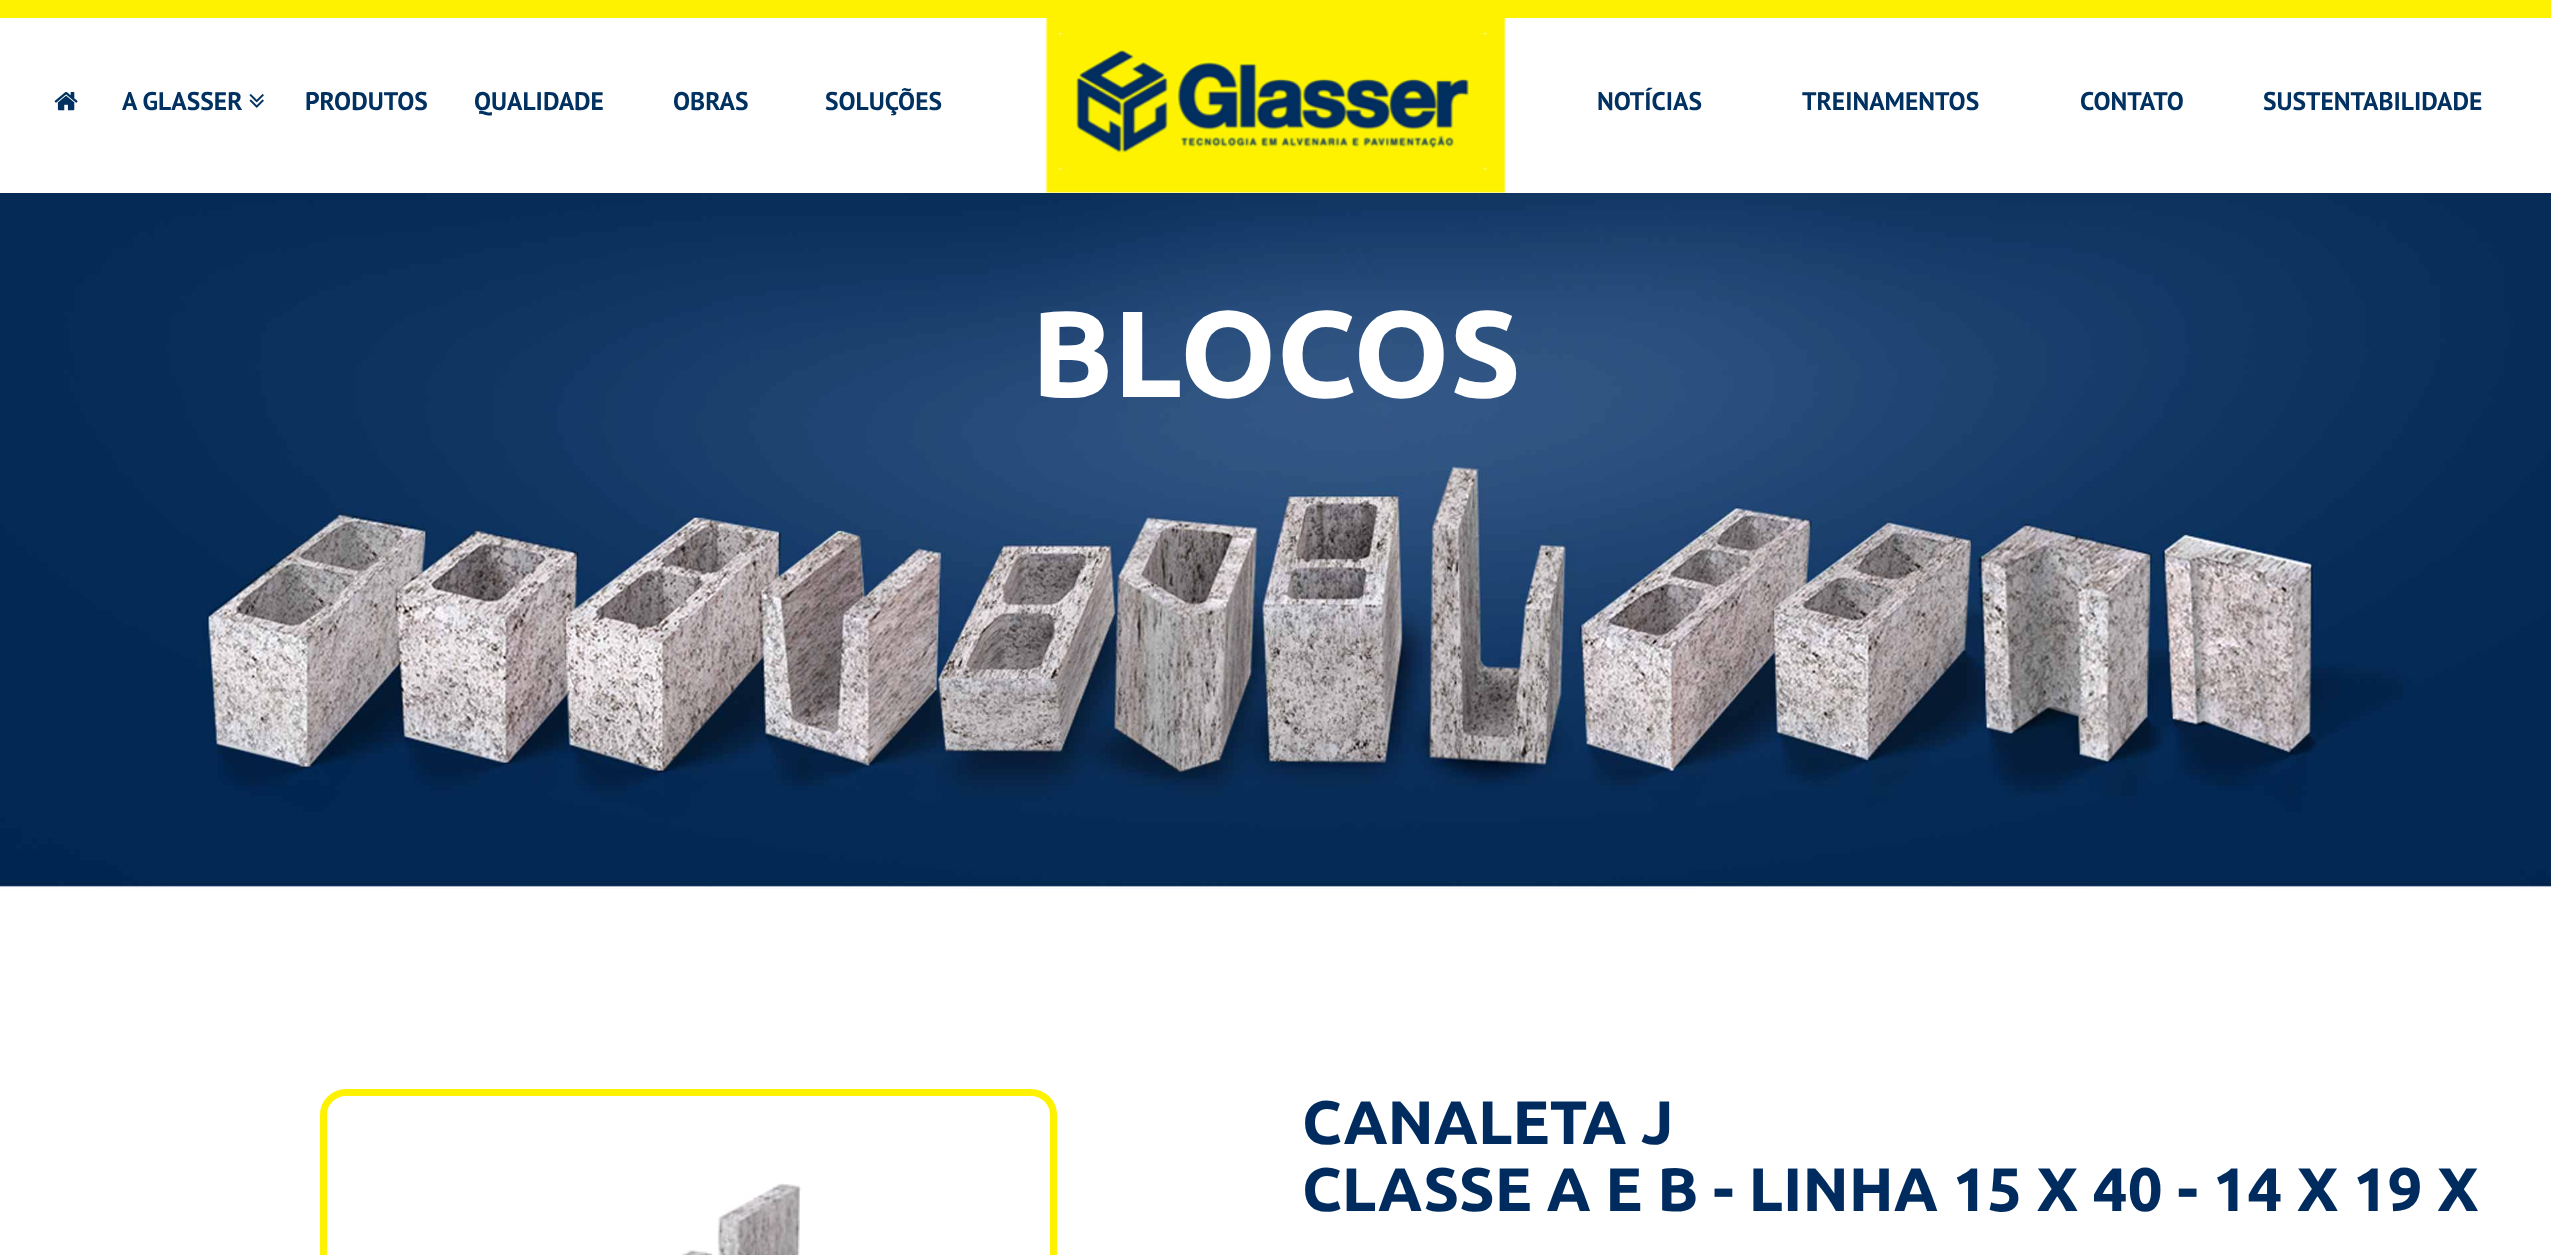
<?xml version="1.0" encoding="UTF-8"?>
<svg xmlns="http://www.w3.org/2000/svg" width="2551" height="1255">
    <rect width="100%" height="100%" fill="#FFFFFF"/>
    <rect x="0" y="0" width="2551" height="18" fill="#FEF200"/>
    <image x="54" y="92" width="24" height="19" href="img_01.png"/>
    <text x="122" y="110" font-family="PT Sans" font-size="25.5" font-weight="700" fill="#003160">A GLASSER</text>
    <image x="249" y="94" width="15" height="14" href="img_02.png"/>
    <text x="305" y="110" font-family="PT Sans" font-size="25.5" font-weight="700" fill="#003160">PRODUTOS</text>
    <text x="474" y="110" font-family="PT Sans" font-size="25.5" font-weight="700" fill="#003160">QUALIDADE</text>
    <text x="673" y="110" font-family="PT Sans" font-size="25.5" font-weight="700" fill="#003160">OBRAS</text>
    <text x="825" y="110" font-family="PT Sans" font-size="25.5" font-weight="700" fill="#003160">SOLUÇÕES</text>
    <image x="1045" y="18" width="461" height="175" href="img_03.png"/>
    <text x="1597" y="110" font-family="PT Sans" font-size="25.5" font-weight="700" fill="#003160">NOTÍCIAS</text>
    <text x="1802" y="110" font-family="PT Sans" font-size="25.5" font-weight="700" fill="#003160">TREINAMENTOS</text>
    <text x="2080" y="110" font-family="PT Sans" font-size="25.5" font-weight="700" fill="#003160">CONTATO</text>
    <text x="2263" y="110" font-family="PT Sans" font-size="25.5" font-weight="700" fill="#003160">SUSTENTABILIDADE</text>
    <image x="0" y="193" width="2551" height="696" href="img_04.png"/>
    <text x="1031" y="397" font-family="Ubuntu" font-size="122.5" font-weight="700" fill="#FFFFFF">BLOCOS</text>
    <rect x="323.5" y="1092.5" width="730" height="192" rx="22.5" fill="none" stroke="#FEF200" stroke-width="7"/>
    <image x="681" y="1183" width="121" height="72" href="img_05.png"/>
    <text font-family="Ubuntu" font-size="61.25" font-weight="700" fill="#002B5E">
        <tspan x="1302" y="1144">CANALETA J</tspan>
        <tspan x="1302" y="1211">CLASSE A E B - LINHA 15 X 40 - 14 X 19 X</tspan>
    </text>
</svg>
